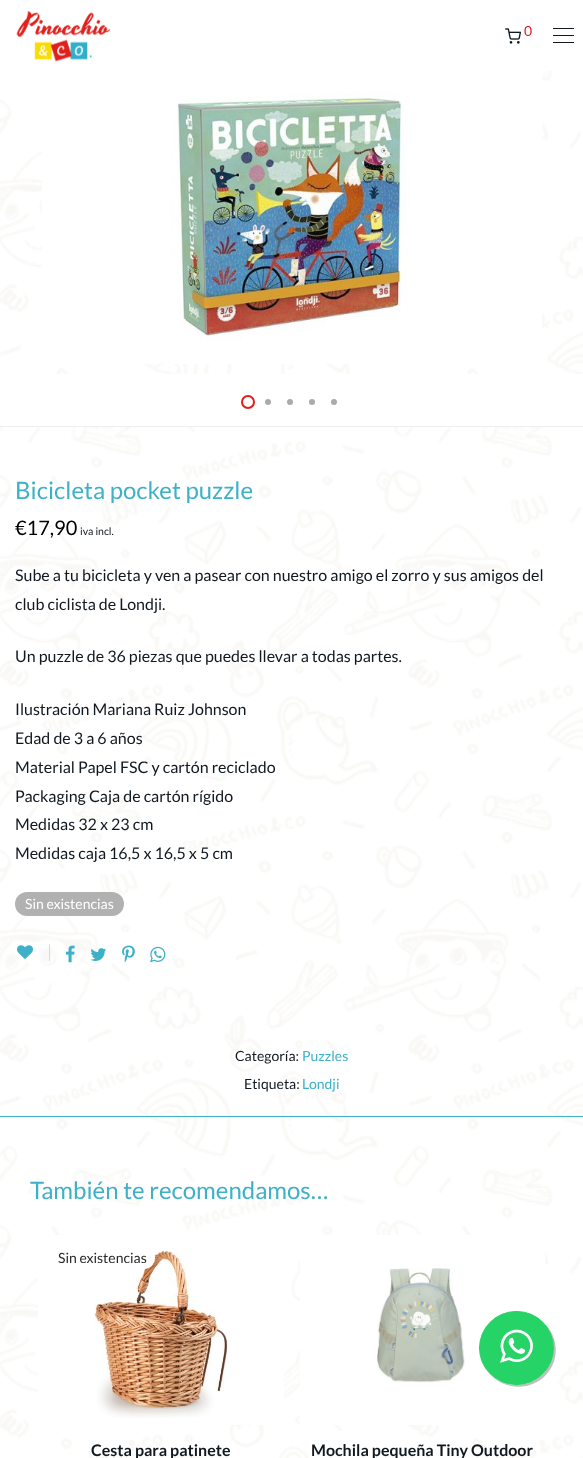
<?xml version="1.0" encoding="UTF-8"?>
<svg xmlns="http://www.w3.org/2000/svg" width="583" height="1458">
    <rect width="100%" height="100%" fill="#FFFFFF"/>
    <image x="0" y="71" width="583" height="1387" href="img_01.png"/>
    <image x="16" y="11" width="94" height="51" href="img_02.png"/>
    <image x="505" y="28" width="16" height="16" href="img_03.png"/>
    <text x="524" y="36" font-family="Lato" font-size="14" fill="#E31C1C">0</text>
    <rect x="553" y="28" width="21" height="1" fill="#101820"/>
    <rect x="553" y="35" width="21" height="1" fill="#101820"/>
    <rect x="553" y="42" width="21" height="1" fill="#101820"/>
    <image x="42" y="71" width="500" height="293" href="img_04.png"/>
    <rect x="0" y="374" width="583" height="52" fill="#FFFFFF"/>
    <rect x="0" y="426" width="583" height="1" fill="#EEEEEE"/>
    <circle cx="248" cy="402" r="6" fill="none" stroke="#E31C1C" stroke-width="2"/>
    <circle cx="268" cy="402" r="3" fill="#AAAAAA"/>
    <circle cx="290" cy="402" r="3" fill="#AAAAAA"/>
    <circle cx="312" cy="402" r="3" fill="#AAAAAA"/>
    <circle cx="334" cy="402" r="3" fill="#AAAAAA"/>
    <text x="15" y="499" font-family="Lato" font-size="24" fill="#3EB1C8">Bicicleta pocket puzzle</text>
    <text x="15" y="535" font-family="Lato" font-size="20" fill="#000000">€17,90</text>
    <text x="80" y="535" font-family="Lato" font-size="10.5" fill="#101820">iva incl.</text>
    <text font-family="Lato" font-size="16" fill="#101820">
        <tspan x="15" y="581">Sube a tu bicicleta y ven a pasear con nuestro amigo el zorro y sus amigos del</tspan>
        <tspan x="15" y="610">club ciclista de Londji.</tspan>
    </text>
    <text x="15" y="662" font-family="Lato" font-size="16" fill="#101820">Un puzzle de 36 piezas que puedes llevar a todas partes.</text>
    <text font-family="Lato" font-size="16" fill="#101820">
        <tspan x="15" y="715">Ilustración Mariana Ruiz Johnson</tspan>
        <tspan x="15" y="744">Edad de 3 a 6 años</tspan>
        <tspan x="15" y="773">Material Papel FSC y cartón reciclado</tspan>
        <tspan x="15" y="802">Packaging Caja de cartón rígido</tspan>
        <tspan x="15" y="830">Medidas 32 x 23 cm</tspan>
        <tspan x="15" y="859">Medidas caja 16,5 x 16,5 x 5 cm</tspan>
    </text>
    <rect x="15" y="892" width="109" height="24" rx="12" fill="#B1B1B1"/>
    <text x="25" y="909" font-family="Lato" font-size="14" fill="#FFFFFF">Sin existencias</text>
    <rect x="49" y="944" width="1" height="17" fill="#DADADA"/>
    <image x="17" y="945" width="16" height="14" href="img_05.png"/>
    <image x="65" y="945" width="10" height="18" href="img_06.png"/>
    <image x="90" y="948" width="17" height="13" href="img_07.png"/>
    <image x="122" y="945" width="13" height="18" href="img_08.png"/>
    <image x="150" y="946" width="16" height="17" href="img_09.png"/>
    <text x="235" y="1061" font-family="Lato" font-size="14" fill="#101820">Categoría:</text>
    <text x="302" y="1061" font-family="Lato" font-size="14" fill="#3EB1C8">Puzzles</text>
    <text x="244" y="1089" font-family="Lato" font-size="14" fill="#101820">Etiqueta:</text>
    <text x="302" y="1089" font-family="Lato" font-size="14" fill="#3EB1C8">Londji</text>
    <rect x="0" y="1116" width="583" height="1" fill="#3EB1C8"/>
    <text x="30" y="1199" font-family="Lato" font-size="24" fill="#3EB1C8">También te recomendamos…</text>
    <rect x="38" y="1235" width="246" height="190" fill="#FFFFFF"/>
    <image x="93" y="1250" width="136" height="168" href="img_10.png"/>
    <rect x="50" y="1247" width="105" height="22" rx="11" fill="#FFFFFF"/>
    <text x="58" y="1263" font-family="Lato" font-size="14" fill="#282828">Sin existencias</text>
    <text x="91" y="1456" font-family="Lato" font-size="16" font-weight="700" fill="#101820">Cesta para patinete</text>
    <rect x="300" y="1235" width="245" height="190" fill="#FFFFFF"/>
    <image x="377" y="1268" width="88" height="115" href="img_11.png"/>
    <text x="311" y="1456" font-family="Lato" font-size="16" font-weight="700" fill="#101820">Mochila pequeña Tiny Outdoor</text>
    <path d="M 491 1375 C 505 1390 530 1391 545 1376 C 560 1361 559 1337 544 1323 C 557 1337 557 1360 543 1374 C 529 1388 505 1389 491 1375 Z" fill="#BFBFBF"/>
    <rect x="479.5" y="1311.5" width="74" height="73" rx="36.5" fill="#25D366" stroke="#25D366"/>
    <image x="500" y="1329" width="33" height="34" href="img_12.png"/>
</svg>
